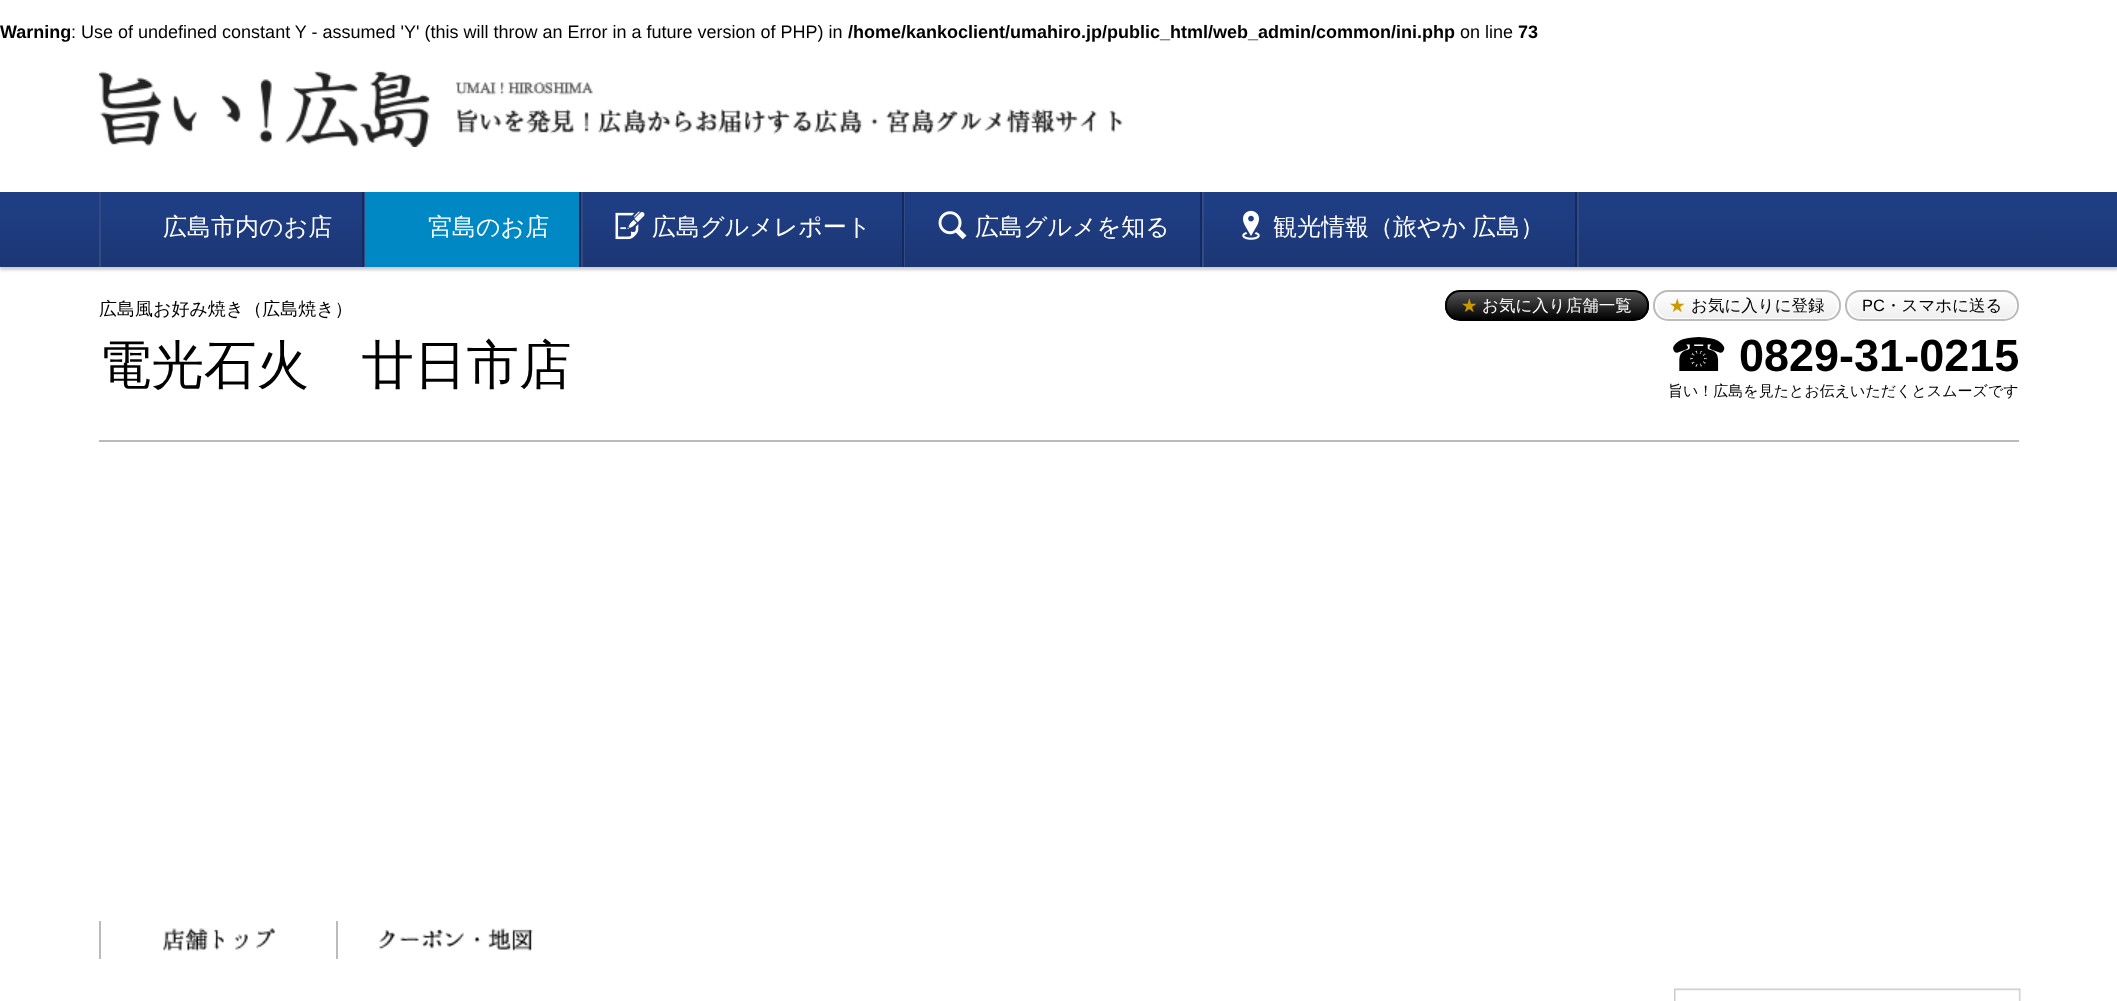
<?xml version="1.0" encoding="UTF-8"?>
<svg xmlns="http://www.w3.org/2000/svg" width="2117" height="1001">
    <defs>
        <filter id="blur1" x="-50%" y="-200%" width="200%" height="500%"><feGaussianBlur stdDeviation="1.5"/></filter>
        <linearGradient id="g1" gradientUnits="userSpaceOnUse" x1="1059" y1="192" x2="1059" y2="267"><stop offset="0.3" stop-color="#1F3D82"/><stop offset="1" stop-color="#1B3673"/></linearGradient>
        <clipPath id="clip1"><rect x="1445" y="290" width="204" height="31" rx="15"/></clipPath>
        <linearGradient id="g2" gradientUnits="userSpaceOnUse" x1="1547" y1="291" x2="1547" y2="320"><stop offset="0" stop-color="#555555"/><stop offset="1" stop-color="#000000"/></linearGradient>
        <clipPath id="clip2"><rect x="1653" y="290" width="188" height="31" rx="15"/></clipPath>
        <linearGradient id="g3" gradientUnits="userSpaceOnUse" x1="1747" y1="291" x2="1747" y2="320"><stop offset="0" stop-color="#FFFFFF"/><stop offset="1" stop-color="#EEEEEE"/></linearGradient>
        <clipPath id="clip3"><rect x="1845" y="290" width="174" height="31" rx="15"/></clipPath>
        <linearGradient id="g4" gradientUnits="userSpaceOnUse" x1="1932" y1="291" x2="1932" y2="320"><stop offset="0" stop-color="#FFFFFF"/><stop offset="1" stop-color="#EEEEEE"/></linearGradient>
    </defs>
    <rect width="100%" height="100%" fill="#FFFFFF"/>
    <text x="0" y="38" font-family="Liberation Sans" font-size="18" font-weight="700" fill="#000000">Warning</text>
    <text x="71" y="38" font-family="Liberation Sans" font-size="18" fill="#000000">: Use of undefined constant Y - assumed 'Y' (this will throw an Error in a future version of PHP) in</text>
    <text x="848" y="38" font-family="Liberation Sans" font-size="18" font-weight="700" fill="#000000">/home/kankoclient/umahiro.jp/public_html/web_admin/common/ini.php</text>
    <text x="1460" y="38" font-family="Liberation Sans" font-size="18" fill="#000000">on line</text>
    <text x="1518" y="38" font-family="Liberation Sans" font-size="18" font-weight="700" fill="#000000">73</text>
    <image x="99" y="71" width="1024" height="76" href="img_01.png"/>
    <rect x="0" y="195" width="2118" height="75" fill="#000000" fill-opacity="0.2" filter="url(#blur1)"/>
    <rect x="0" y="192" width="2117" height="75" fill="url(#g1)"/>
    <rect x="364" y="192" width="1" height="75" fill="#334B83"/>
    <rect x="99" y="192" width="2" height="75" fill="#334B83"/>
    <rect x="362" y="192" width="2" height="75" fill="#122A61"/>
    <text x="163" y="235" font-family="WenQuanYi Zen Hei" font-size="24" font-weight="500" fill="#FFFFFF">広島市内のお店</text>
    <rect x="581" y="192" width="2" height="75" fill="#334B83"/>
    <rect x="365" y="192" width="214" height="75" fill="#0088C4"/>
    <rect x="579" y="192" width="2" height="75" fill="#122A61"/>
    <text x="428" y="235" font-family="WenQuanYi Zen Hei" font-size="24" font-weight="500" fill="#FFFFFF">宮島のお店</text>
    <rect x="904" y="192" width="1" height="75" fill="#334B83"/>
    <rect x="902" y="192" width="2" height="75" fill="#122A61"/>
    <image x="615" y="211" width="30" height="29" href="img_02.png"/>
    <text x="652" y="235" font-family="WenQuanYi Zen Hei" font-size="24" font-weight="500" fill="#FFFFFF">広島グルメレポート</text>
    <rect x="1202" y="192" width="2" height="75" fill="#334B83"/>
    <rect x="1200" y="192" width="2" height="75" fill="#122A61"/>
    <image x="938" y="211" width="29" height="29" href="img_03.png"/>
    <text x="975" y="235" font-family="WenQuanYi Zen Hei" font-size="24" font-weight="500" fill="#FFFFFF">広島グルメを知る</text>
    <rect x="1577" y="192" width="2" height="75" fill="#334B83"/>
    <rect x="1575" y="192" width="2" height="75" fill="#122A61"/>
    <image x="1242" y="210" width="18" height="30" href="img_04.png"/>
    <text x="1273" y="235" word-spacing="-1" font-family="WenQuanYi Zen Hei" font-size="24" font-weight="500" fill="#FFFFFF">観光情報（旅やか 広島）</text>
    <rect x="99" y="440" width="1920" height="2" fill="#BBBBBB"/>
    <text x="99" y="315" font-family="WenQuanYi Zen Hei" font-size="18" font-weight="500" fill="#000000">広島風お好み焼き（広島焼き）</text>
    <g clip-path="url(#clip1)">
        <rect x="1445" y="291" width="204" height="29" fill="url(#g2)"/>
    </g>
    <rect x="1446" y="291" width="202" height="29" rx="14" fill="none" stroke="#000000" stroke-width="2"/>
    <text x="1461" y="311" font-family="WenQuanYi Zen Hei" font-size="16.5" font-weight="500" fill="#CC9900">★</text>
    <text x="1482" y="311" font-family="WenQuanYi Zen Hei" font-size="16.5" font-weight="500" fill="#FFFFFF">お気に入り店舗一覧</text>
    <g clip-path="url(#clip2)">
        <rect x="1653" y="291" width="188" height="29" fill="url(#g3)"/>
    </g>
    <rect x="1656" y="292" width="182" height="27" rx="13" fill="none" stroke="#FFFFFF" stroke-width="2"/>
    <rect x="1654" y="291" width="186" height="29" rx="14" fill="none" stroke="#BBBBBB" stroke-width="2"/>
    <text x="1669" y="311" font-family="WenQuanYi Zen Hei" font-size="16.5" font-weight="500" fill="#CC9900">★</text>
    <text x="1691" y="311" font-family="WenQuanYi Zen Hei" font-size="16.5" font-weight="500" fill="#000000">お気に入りに登録</text>
    <g clip-path="url(#clip3)">
        <rect x="1845" y="291" width="174" height="29" fill="url(#g4)"/>
    </g>
    <rect x="1848" y="292" width="169" height="27" rx="13" fill="none" stroke="#FFFFFF" stroke-width="2"/>
    <rect x="1846" y="291" width="172" height="29" rx="14" fill="none" stroke="#BBBBBB" stroke-width="2"/>
    <text x="1862" y="311" font-family="Liberation Sans" font-size="16.5" fill="#000000">PC</text>
    <text x="1885" y="311" font-family="WenQuanYi Zen Hei" font-size="16.5" font-weight="500" fill="#000000">・スマホに送る</text>
    <text x="1670" y="371" font-family="DejaVu Sans" font-size="45" font-weight="700" fill="#000000">☎</text>
    <text x="1739" y="371" font-family="Liberation Sans" font-size="45" font-weight="700" fill="#000000">0829-31-0215</text>
    <text x="1668" y="396" font-family="WenQuanYi Zen Hei" font-size="15" font-weight="500" fill="#000000">旨い！広島を見たとお伝えいただくとスムーズです</text>
    <text x="99" y="383" font-family="WenQuanYi Zen Hei" font-size="52.5" font-weight="500" fill="#000000">電光石火　廿日市店</text>
    <rect x="99" y="921" width="2" height="38" fill="#BBBBBB"/>
    <image x="163" y="928" width="112" height="23" href="img_05.png"/>
    <rect x="336" y="921" width="2" height="38" fill="#BBBBBB"/>
    <image x="379" y="928" width="154" height="23" href="img_06.png"/>
    <image x="1674" y="988" width="347" height="13" href="img_07.png"/>
</svg>
